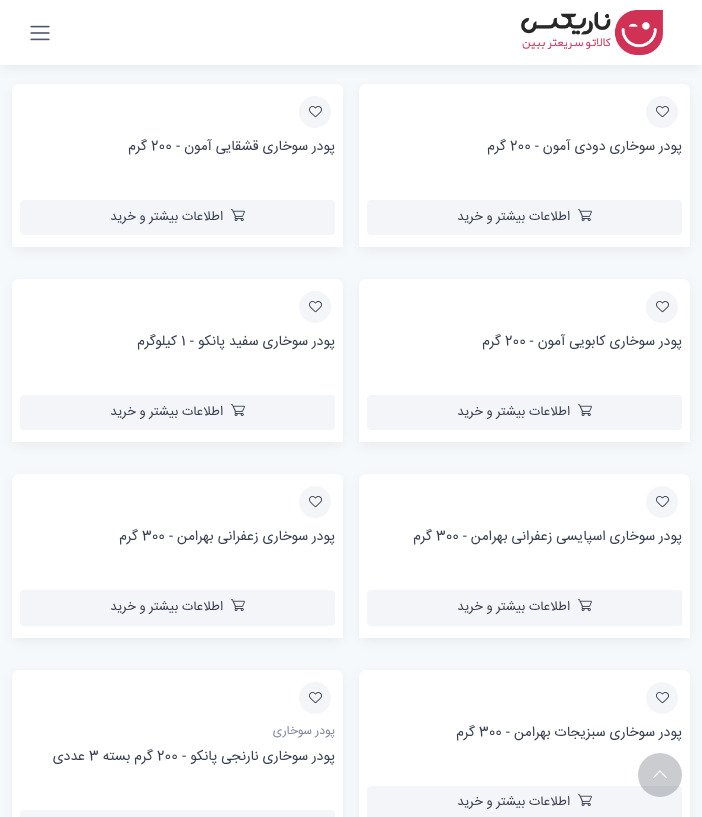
<?xml version="1.0" encoding="UTF-8"?>
<svg xmlns="http://www.w3.org/2000/svg" width="702" height="817">
    <defs>
        <filter id="blur1" x="-50%" y="-200%" width="200%" height="500%"><feGaussianBlur stdDeviation="6"/></filter>
    </defs>
    <rect width="100%" height="100%" fill="#F6F9FC"/>
    <rect x="360" y="89" width="329" height="161" rx="6" fill="#000000" fill-opacity="0.06" filter="url(#blur1)"/>
    <rect x="359" y="84" width="331" height="163" rx="7" fill="#FFFFFF"/>
    <rect x="13" y="89" width="329" height="161" rx="6" fill="#000000" fill-opacity="0.06" filter="url(#blur1)"/>
    <rect x="12" y="84" width="331" height="163" rx="7" fill="#FFFFFF"/>
    <rect x="1" y="5" width="700" height="63" fill="#000000" fill-opacity="0.06" filter="url(#blur1)"/>
    <rect x="0" y="0" width="702" height="65" fill="#FFFFFF"/>
    <image x="521" y="10" width="142" height="45" href="img_01.png"/>
    <image x="30" y="25" width="20" height="16" href="img_02.png"/>
    <circle cx="662" cy="112" r="16" fill="#F3F5F9"/>
    <image x="656" y="106" width="13" height="12" href="img_03.png"/>
    <rect x="359" y="241" width="331" height="6" fill="#FFFFFF"/>
    <text x="682" y="150" font-family="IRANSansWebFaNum" font-size="14" direction="rtl" fill="#373F50">پودر سوخاری دودی آمون -</text>
    <text x="510" y="150" font-family="IRANSansWebFaNum" font-size="14" fill="#373F50">200</text>
    <text x="506" y="150" font-family="IRANSansWebFaNum" font-size="14" direction="rtl" fill="#373F50">گرم</text>
    <rect x="367.5" y="200.5" width="314" height="34" rx="3.5" fill="#F3F5F9" stroke="#F3F5F9"/>
    <image x="578" y="209" width="14" height="12" href="img_04.png"/>
    <text x="570" y="220" font-family="IRANSansWebFaNum" font-size="13" direction="rtl" fill="#373F50">اطلاعات بیشتر و خرید</text>
    <circle cx="315" cy="112" r="16" fill="#F3F5F9"/>
    <image x="309" y="106" width="13" height="12" href="img_03.png"/>
    <rect x="12" y="241" width="331" height="6" fill="#FFFFFF"/>
    <text x="335" y="150" font-family="IRANSansWebFaNum" font-size="14" direction="rtl" fill="#373F50">پودر سوخاری قشقایی آمون -</text>
    <text x="151" y="150" font-family="IRANSansWebFaNum" font-size="14" fill="#373F50">200</text>
    <text x="147" y="150" font-family="IRANSansWebFaNum" font-size="14" direction="rtl" fill="#373F50">گرم</text>
    <rect x="20.5" y="200.5" width="314" height="34" rx="3.5" fill="#F3F5F9" stroke="#F3F5F9"/>
    <image x="231" y="209" width="14" height="12" href="img_04.png"/>
    <text x="223" y="220" font-family="IRANSansWebFaNum" font-size="13" direction="rtl" fill="#373F50">اطلاعات بیشتر و خرید</text>
    <rect x="360" y="284" width="329" height="161" rx="6" fill="#000000" fill-opacity="0.06" filter="url(#blur1)"/>
    <rect x="359" y="279" width="331" height="163" rx="7" fill="#FFFFFF"/>
    <circle cx="662" cy="307" r="16" fill="#F3F5F9"/>
    <image x="656" y="301" width="13" height="12" href="img_03.png"/>
    <rect x="13" y="284" width="329" height="161" rx="6" fill="#000000" fill-opacity="0.06" filter="url(#blur1)"/>
    <rect x="359" y="436" width="331" height="6" fill="#FFFFFF"/>
    <text x="682" y="345" font-family="IRANSansWebFaNum" font-size="14" direction="rtl" fill="#373F50">پودر سوخاری کابویی آمون -</text>
    <text x="505" y="345" font-family="IRANSansWebFaNum" font-size="14" fill="#373F50">200</text>
    <text x="501" y="345" font-family="IRANSansWebFaNum" font-size="14" direction="rtl" fill="#373F50">گرم</text>
    <rect x="367.5" y="395.5" width="314" height="34" rx="3.5" fill="#F3F5F9" stroke="#F3F5F9"/>
    <image x="578" y="404" width="14" height="12" href="img_04.png"/>
    <text x="570" y="415" font-family="IRANSansWebFaNum" font-size="13" direction="rtl" fill="#373F50">اطلاعات بیشتر و خرید</text>
    <rect x="12" y="279" width="331" height="163" rx="7" fill="#FFFFFF"/>
    <circle cx="315" cy="307" r="16" fill="#F3F5F9"/>
    <image x="309" y="301" width="13" height="12" href="img_03.png"/>
    <rect x="12" y="436" width="331" height="6" fill="#FFFFFF"/>
    <text x="335" y="345" font-family="IRANSansWebFaNum" font-size="14" direction="rtl" fill="#373F50">پودر سوخاری سفید پانکو -</text>
    <text x="181" y="345" font-family="IRANSansWebFaNum" font-size="14" fill="#373F50">1</text>
    <text x="177" y="345" font-family="IRANSansWebFaNum" font-size="14" direction="rtl" fill="#373F50">کیلوگرم</text>
    <rect x="20.5" y="395.5" width="314" height="34" rx="3.5" fill="#F3F5F9" stroke="#F3F5F9"/>
    <image x="231" y="404" width="14" height="12" href="img_04.png"/>
    <text x="223" y="415" font-family="IRANSansWebFaNum" font-size="13" direction="rtl" fill="#373F50">اطلاعات بیشتر و خرید</text>
    <rect x="360" y="479" width="329" height="162" rx="6" fill="#000000" fill-opacity="0.06" filter="url(#blur1)"/>
    <rect x="359" y="474" width="331" height="164" rx="7" fill="#FFFFFF"/>
    <circle cx="662" cy="502" r="16" fill="#F3F5F9"/>
    <image x="656" y="496" width="13" height="12" href="img_03.png"/>
    <rect x="13" y="479" width="329" height="162" rx="6" fill="#000000" fill-opacity="0.06" filter="url(#blur1)"/>
    <rect x="359" y="632" width="331" height="6" fill="#FFFFFF"/>
    <text x="682" y="540" font-family="IRANSansWebFaNum" font-size="14" direction="rtl" fill="#373F50">پودر سوخاری اسپایسی زعفرانی بهرامن -</text>
    <text x="436" y="540" font-family="IRANSansWebFaNum" font-size="14" fill="#373F50">300</text>
    <text x="432" y="540" font-family="IRANSansWebFaNum" font-size="14" direction="rtl" fill="#373F50">گرم</text>
    <rect x="367.5" y="590.5" width="314" height="35" rx="3.5" fill="#F3F5F9" stroke="#F3F5F9"/>
    <image x="578" y="599" width="14" height="12" href="img_04.png"/>
    <text x="570" y="610" font-family="IRANSansWebFaNum" font-size="13" direction="rtl" fill="#373F50">اطلاعات بیشتر و خرید</text>
    <rect x="12" y="474" width="331" height="164" rx="7" fill="#FFFFFF"/>
    <circle cx="315" cy="502" r="16" fill="#F3F5F9"/>
    <image x="309" y="496" width="13" height="12" href="img_03.png"/>
    <rect x="12" y="632" width="331" height="6" fill="#FFFFFF"/>
    <text x="335" y="540" font-family="IRANSansWebFaNum" font-size="14" direction="rtl" fill="#373F50">پودر سوخاری زعفرانی بهرامن -</text>
    <text x="142" y="540" font-family="IRANSansWebFaNum" font-size="14" fill="#373F50">300</text>
    <text x="138" y="540" font-family="IRANSansWebFaNum" font-size="14" direction="rtl" fill="#373F50">گرم</text>
    <rect x="20.5" y="590.5" width="314" height="35" rx="3.5" fill="#F3F5F9" stroke="#F3F5F9"/>
    <image x="231" y="599" width="14" height="12" href="img_04.png"/>
    <text x="223" y="610" font-family="IRANSansWebFaNum" font-size="13" direction="rtl" fill="#373F50">اطلاعات بیشتر و خرید</text>
    <rect x="360" y="675" width="329" height="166" rx="6" fill="#000000" fill-opacity="0.06" filter="url(#blur1)"/>
    <rect x="359" y="670" width="331" height="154" rx="7" fill="#FFFFFF"/>
    <circle cx="662" cy="698" r="16" fill="#F3F5F9"/>
    <image x="656" y="692" width="13" height="12" href="img_03.png"/>
    <text x="682" y="736" font-family="IRANSansWebFaNum" font-size="14" direction="rtl" fill="#373F50">پودر سوخاری سبزیجات بهرامن -</text>
    <text x="479" y="736" font-family="IRANSansWebFaNum" font-size="14" fill="#373F50">300</text>
    <text x="475" y="736" font-family="IRANSansWebFaNum" font-size="14" direction="rtl" fill="#373F50">گرم</text>
    <rect x="367.5" y="786.5" width="314" height="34" rx="3.5" fill="#F3F5F9" stroke="#F3F5F9"/>
    <image x="578" y="794" width="14" height="12" href="img_04.png"/>
    <text x="570" y="805" font-family="IRANSansWebFaNum" font-size="13" direction="rtl" fill="#373F50">اطلاعات بیشتر و خرید</text>
    <rect x="13" y="675" width="329" height="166" rx="6" fill="#000000" fill-opacity="0.06" filter="url(#blur1)"/>
    <rect x="12" y="670" width="331" height="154" rx="7" fill="#FFFFFF"/>
    <circle cx="315" cy="698" r="16" fill="#F3F5F9"/>
    <image x="309" y="692" width="13" height="12" href="img_03.png"/>
    <text x="335" y="734" font-family="IRANSansWebFaNum" font-size="12" direction="rtl" fill="#7D879C">پودر سوخاری</text>
    <text x="335" y="760" font-family="IRANSansWebFaNum" font-size="14" direction="rtl" fill="#373F50">پودر سوخاری نارنجی پانکو -</text>
    <text x="157" y="760" font-family="IRANSansWebFaNum" font-size="14" fill="#373F50">200</text>
    <text x="153" y="760" font-family="IRANSansWebFaNum" font-size="14" direction="rtl" fill="#373F50">گرم بسته</text>
    <text x="89" y="760" font-family="IRANSansWebFaNum" font-size="14" fill="#373F50">3</text>
    <text x="85" y="760" font-family="IRANSansWebFaNum" font-size="14" direction="rtl" fill="#373F50">عددی</text>
    <rect x="20.5" y="810.5" width="314" height="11" rx="3.5" fill="#F3F5F9" stroke="#F3F5F9"/>
    <circle cx="660" cy="775" r="22" fill="#2B3445" fill-opacity="0.25"/>
    <image x="653" y="770" width="14" height="8" href="img_05.png"/>
</svg>
